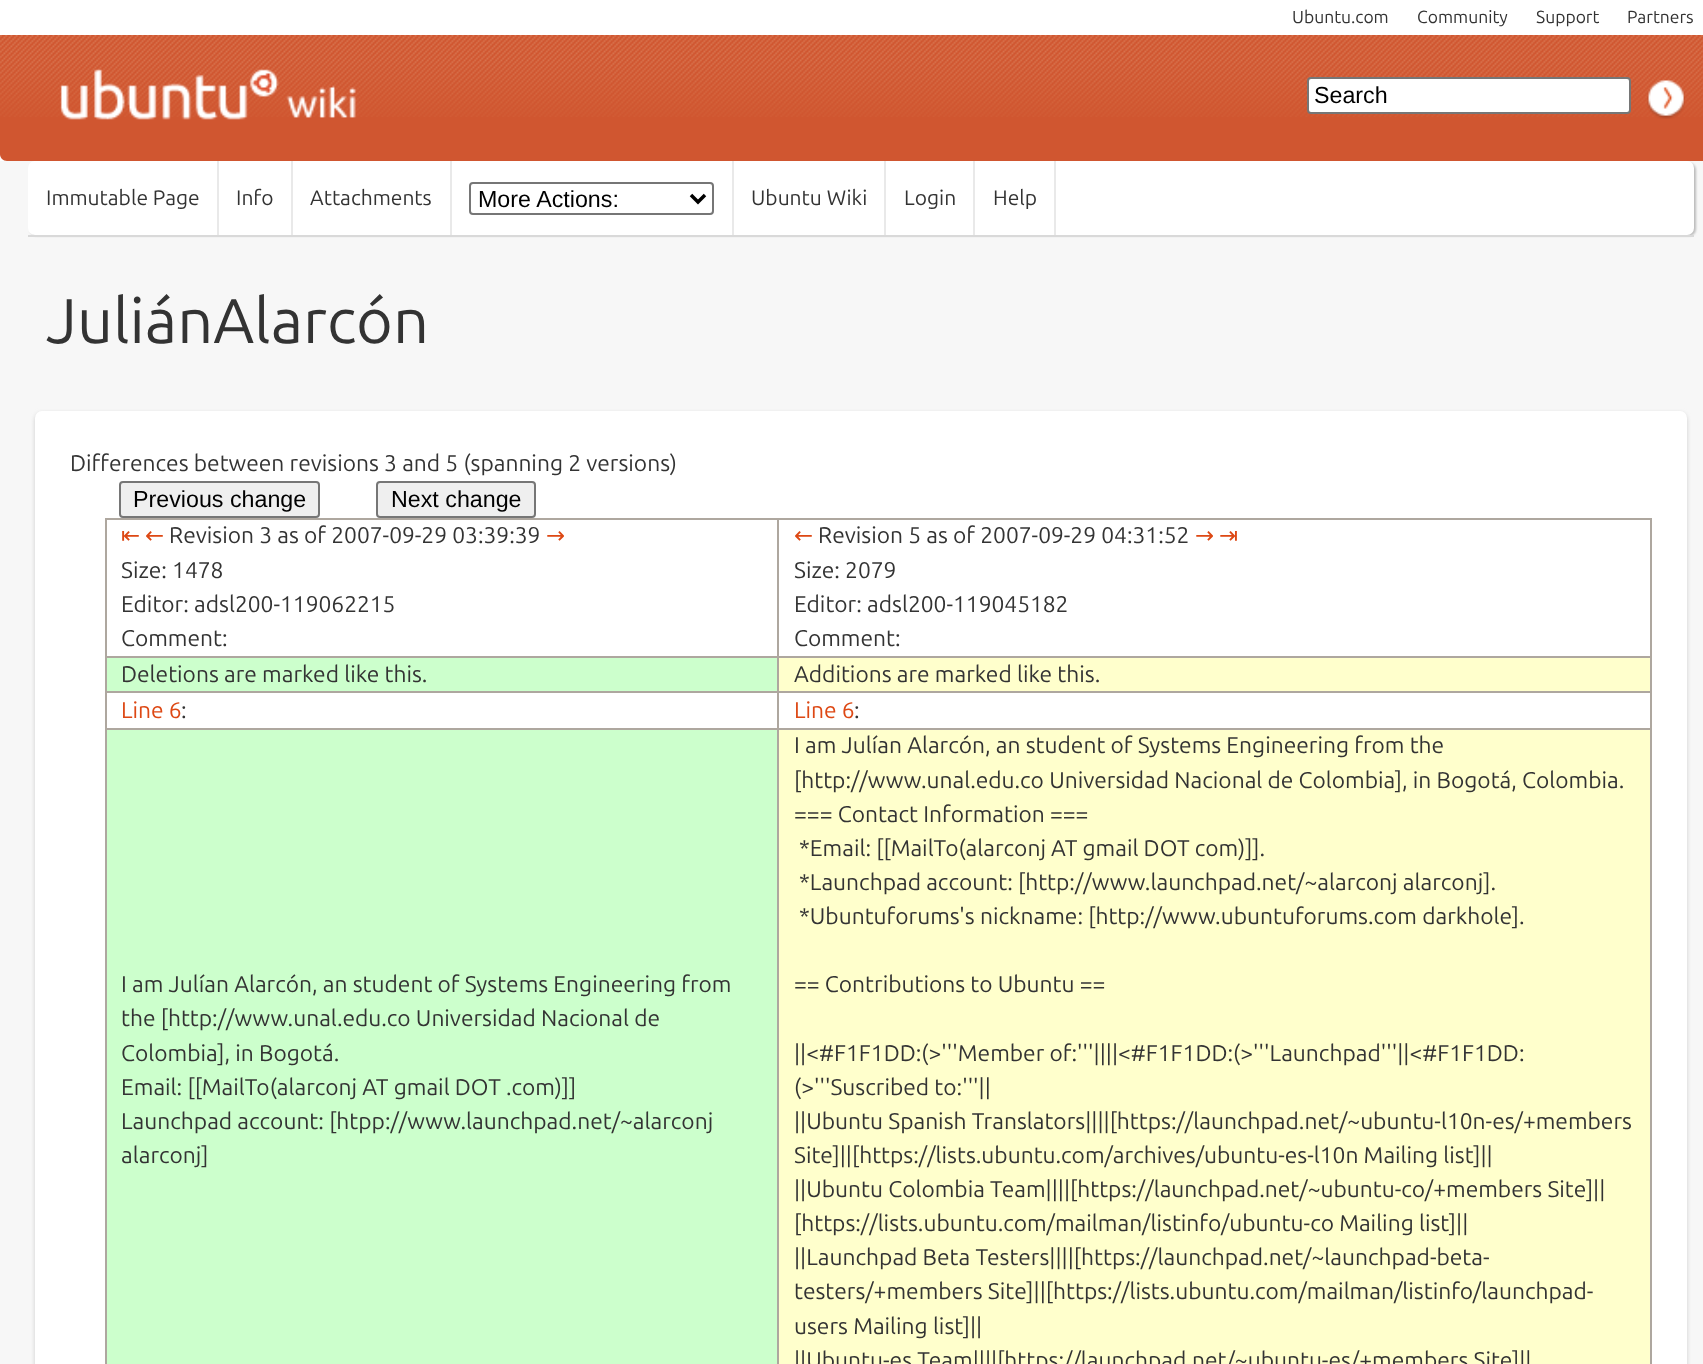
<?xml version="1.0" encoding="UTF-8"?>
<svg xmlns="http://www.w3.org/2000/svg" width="1703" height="1364">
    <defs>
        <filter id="blur1" x="-50%" y="-200%" width="200%" height="500%"><feGaussianBlur stdDeviation="1"/></filter>
        <filter id="blur2" x="-50%" y="-200%" width="200%" height="500%"><feGaussianBlur stdDeviation="2"/></filter>
    </defs>
    <rect width="100%" height="100%" fill="#F7F7F7"/>
    <rect x="0" y="0" width="1703" height="161" fill="#FFFFFF"/>
    <text x="1292" y="23" font-family="Ubuntu" font-size="17.5" fill="#333333">Ubuntu.com</text>
    <text x="1417" y="23" font-family="Ubuntu" font-size="17.5" fill="#333333">Community</text>
    <text x="1536" y="23" font-family="Ubuntu" font-size="17.5" fill="#333333">Support</text>
    <text x="1627" y="23" font-family="Ubuntu" font-size="17.5" fill="#333333">Partners</text>
    <path d="M 0 35 H 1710 V 154 C 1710 158 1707 161 1703 161 H 7 C 3 161 0 158 0 154 Z" fill="#D05630"/>
    <image x="0" y="35" width="1703" height="82" href="img_01.png"/>
    <image x="60" y="69" width="296" height="51" href="img_02.png"/>
    <rect x="1308" y="78" width="322" height="35" rx="3" fill="#FFFFFF" stroke="#767676" stroke-width="2"/>
    <text x="1314" y="103" font-family="Liberation Sans" font-size="23.25" fill="#000000">Search</text>
    <image x="1647" y="80" width="38" height="39" href="img_03.png"/>
    <rect x="30" y="163" width="1666" height="73" rx="7" fill="#BBBBBB" filter="url(#blur1)"/>
    <rect x="28" y="161" width="1666" height="74" rx="7" fill="#FFFFFF"/>
    <rect x="217" y="161" width="2" height="74" fill="#E9E9E9"/>
    <text x="46" y="205" font-family="Ubuntu" font-size="21" fill="#333333">Immutable Page</text>
    <rect x="291" y="161" width="2" height="74" fill="#E9E9E9"/>
    <text x="236" y="205" font-family="Ubuntu" font-size="21" fill="#333333">Info</text>
    <rect x="450" y="161" width="2" height="74" fill="#E9E9E9"/>
    <text x="310" y="205" font-family="Ubuntu" font-size="21" fill="#333333">Attachments</text>
    <rect x="732" y="161" width="2" height="74" fill="#E9E9E9"/>
    <rect x="470" y="183" width="243" height="31" rx="3" fill="none" stroke="#767676" stroke-width="2"/>
    <path d="M 691 195 L 698 202 L 705 195" fill="none" stroke="#000000" stroke-width="3.5"/>
    <text x="478" y="207" font-family="Liberation Sans" font-size="23.25" fill="#000000">More Actions:</text>
    <rect x="884" y="161" width="2" height="74" fill="#E9E9E9"/>
    <text x="751" y="205" font-family="Ubuntu" font-size="21" fill="#333333">Ubuntu Wiki</text>
    <rect x="973" y="161" width="2" height="74" fill="#E9E9E9"/>
    <text x="904" y="205" font-family="Ubuntu" font-size="21" fill="#333333">Login</text>
    <rect x="1054" y="161" width="2" height="74" fill="#E9E9E9"/>
    <text x="993" y="205" font-family="Ubuntu" font-size="21" fill="#333333">Help</text>
    <rect x="28" y="235" width="1666" height="2" fill="#D9D9D9"/>
    <text x="46" y="343" font-family="Ubuntu" font-size="63" fill="#333333">JuliánAlarcón</text>
    <rect x="35" y="413" width="1652" height="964" rx="7" fill="#CCCCCC" filter="url(#blur2)"/>
    <rect x="35" y="411" width="1652" height="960" rx="7" fill="#FFFFFF"/>
    <text x="70" y="471" font-family="Ubuntu" font-size="22.75" fill="#333333">Differences between revisions 3 and 5 (spanning 2 versions)</text>
    <rect x="120" y="482" width="199" height="35" rx="3" fill="#EFEFEF" stroke="#767676" stroke-width="2"/>
    <text x="133" y="507" font-family="Liberation Sans" font-size="23.25" fill="#000000">Previous change</text>
    <rect x="377" y="482" width="158" height="35" rx="3" fill="#EFEFEF" stroke="#767676" stroke-width="2"/>
    <text x="391" y="507" font-family="Liberation Sans" font-size="23.25" fill="#000000">Next change</text>
    <rect x="777" y="518" width="875" height="2" fill="#AEA79F"/>
    <rect x="777" y="656" width="875" height="2" fill="#AEA79F"/>
    <rect x="777" y="691" width="875" height="2" fill="#AEA79F"/>
    <rect x="777" y="728" width="875" height="2" fill="#AEA79F"/>
    <rect x="777" y="728" width="2" height="636" fill="#AEA79F"/>
    <rect x="105" y="728" width="674" height="2" fill="#AEA79F"/>
    <rect x="777" y="691" width="2" height="39" fill="#AEA79F"/>
    <rect x="105" y="691" width="674" height="2" fill="#AEA79F"/>
    <rect x="777" y="656" width="2" height="37" fill="#AEA79F"/>
    <rect x="105" y="656" width="674" height="2" fill="#AEA79F"/>
    <rect x="777" y="518" width="2" height="140" fill="#AEA79F"/>
    <rect x="105" y="518" width="674" height="2" fill="#AEA79F"/>
    <rect x="105" y="728" width="2" height="636" fill="#AEA79F"/>
    <rect x="105" y="691" width="2" height="39" fill="#AEA79F"/>
    <rect x="105" y="656" width="2" height="37" fill="#AEA79F"/>
    <rect x="105" y="518" width="2" height="140" fill="#AEA79F"/>
    <text x="121" y="543" font-family="DejaVu Sans" font-size="22.75" fill="#DD4814">⇤</text>
    <text x="145" y="543" font-family="DejaVu Sans" font-size="22.75" fill="#DD4814">←</text>
    <text x="169" y="543" font-family="Ubuntu" font-size="22.75" fill="#333333">Revision 3 as of 2007-09-29 03:39:39</text>
    <text x="546" y="543" font-family="DejaVu Sans" font-size="22.75" fill="#DD4814">→</text>
    <text font-family="Ubuntu" font-size="22.75" fill="#333333">
        <tspan x="121" y="578">Size: 1478</tspan>
        <tspan x="121" y="612">Editor: adsl200-119062215</tspan>
        <tspan x="121" y="646">Comment:</tspan>
    </text>
    <rect x="1650" y="728" width="2" height="636" fill="#AEA79F"/>
    <rect x="1650" y="691" width="2" height="39" fill="#AEA79F"/>
    <rect x="1650" y="656" width="2" height="37" fill="#AEA79F"/>
    <rect x="1650" y="518" width="2" height="140" fill="#AEA79F"/>
    <text x="794" y="543" font-family="DejaVu Sans" font-size="22.75" fill="#DD4814">←</text>
    <text x="818" y="543" font-family="Ubuntu" font-size="22.75" fill="#333333">Revision 5 as of 2007-09-29 04:31:52</text>
    <text x="1195" y="543" font-family="DejaVu Sans" font-size="22.75" fill="#DD4814">→</text>
    <text x="1219" y="543" font-family="DejaVu Sans" font-size="22.75" fill="#DD4814">⇥</text>
    <text font-family="Ubuntu" font-size="22.75" fill="#333333">
        <tspan x="794" y="578">Size: 2079</tspan>
        <tspan x="794" y="612">Editor: adsl200-119045182</tspan>
        <tspan x="794" y="646">Comment:</tspan>
    </text>
    <rect x="107" y="658" width="670" height="33" fill="#CCFFCC"/>
    <text x="121" y="682" font-family="Ubuntu" font-size="22.75" fill="#333333">Deletions are marked like this.</text>
    <rect x="779" y="658" width="871" height="33" fill="#FFFFCC"/>
    <text x="794" y="682" font-family="Ubuntu" font-size="22.75" fill="#333333">Additions are marked like this.</text>
    <text x="121" y="718" font-family="Ubuntu" font-size="22.75" fill="#DD4814">Line 6</text>
    <text x="181" y="718" font-family="Ubuntu" font-size="22.75" fill="#333333">:</text>
    <text x="794" y="718" font-family="Ubuntu" font-size="22.75" fill="#DD4814">Line 6</text>
    <text x="854" y="718" font-family="Ubuntu" font-size="22.75" fill="#333333">:</text>
    <rect x="107" y="730" width="670" height="634" fill="#CCFFCC"/>
    <text font-family="Ubuntu" font-size="22.75" fill="#333333">
        <tspan x="121" y="992">I am Julían Alarcón, an student of Systems Engineering from</tspan>
        <tspan x="121" y="1026">the [http://www.unal.edu.co Universidad Nacional de</tspan>
        <tspan x="121" y="1061">Colombia], in Bogotá.</tspan>
        <tspan x="121" y="1095">Email: [[MailTo(alarconj AT gmail DOT .com)]]</tspan>
        <tspan x="121" y="1129">Launchpad account: [htpp://www.launchpad.net/~alarconj</tspan>
        <tspan x="121" y="1163">alarconj]</tspan>
    </text>
    <rect x="779" y="730" width="871" height="634" fill="#FFFFCC"/>
    <text font-family="Ubuntu" font-size="22.75" fill="#333333">
        <tspan x="794" y="753">I am Julían Alarcón, an student of Systems Engineering from the</tspan>
        <tspan x="794" y="788">[http://www.unal.edu.co Universidad Nacional de Colombia], in Bogotá, Colombia.</tspan>
        <tspan x="794" y="822">=== Contact Information ===</tspan>
    </text>
    <text font-family="Ubuntu" font-size="22.75" fill="#333333">
        <tspan x="799" y="856">*Email: [[MailTo(alarconj AT gmail DOT com)]].</tspan>
        <tspan x="799" y="890">*Launchpad account: [http://www.launchpad.net/~alarconj alarconj].</tspan>
        <tspan x="799" y="924">*Ubuntuforums's nickname: [http://www.ubuntuforums.com darkhole].</tspan>
    </text>
    <text x="794" y="992" font-family="Ubuntu" font-size="22.75" fill="#333333">== Contributions to Ubuntu ==</text>
    <text font-family="Ubuntu" font-size="22.75" fill="#333333">
        <tspan x="794" y="1061">||&lt;#F1F1DD:(&gt;'''Member of:'''||||&lt;#F1F1DD:(&gt;'''Launchpad'''||&lt;#F1F1DD:</tspan>
        <tspan x="794" y="1095">(&gt;'''Suscribed to:'''||</tspan>
        <tspan x="794" y="1129">||Ubuntu Spanish Translators||||[https://launchpad.net/~ubuntu-l10n-es/+members</tspan>
        <tspan x="794" y="1163">Site]||[https://lists.ubuntu.com/archives/ubuntu-es-l10n Mailing list]||</tspan>
        <tspan x="794" y="1197">||Ubuntu Colombia Team||||[https://launchpad.net/~ubuntu-co/+members Site]||</tspan>
        <tspan x="794" y="1231">[https://lists.ubuntu.com/mailman/listinfo/ubuntu-co Mailing list]||</tspan>
        <tspan x="794" y="1265">||Launchpad Beta Testers||||[https://launchpad.net/~launchpad-beta-</tspan>
        <tspan x="794" y="1299">testers/+members Site]||[https://lists.ubuntu.com/mailman/listinfo/launchpad-</tspan>
        <tspan x="794" y="1334">users Mailing list]||</tspan>
        <tspan x="794" y="1368">||Ubuntu-es Team||||[https://launchpad.net/~ubuntu-es/+members Site]||</tspan>
    </text>
</svg>
